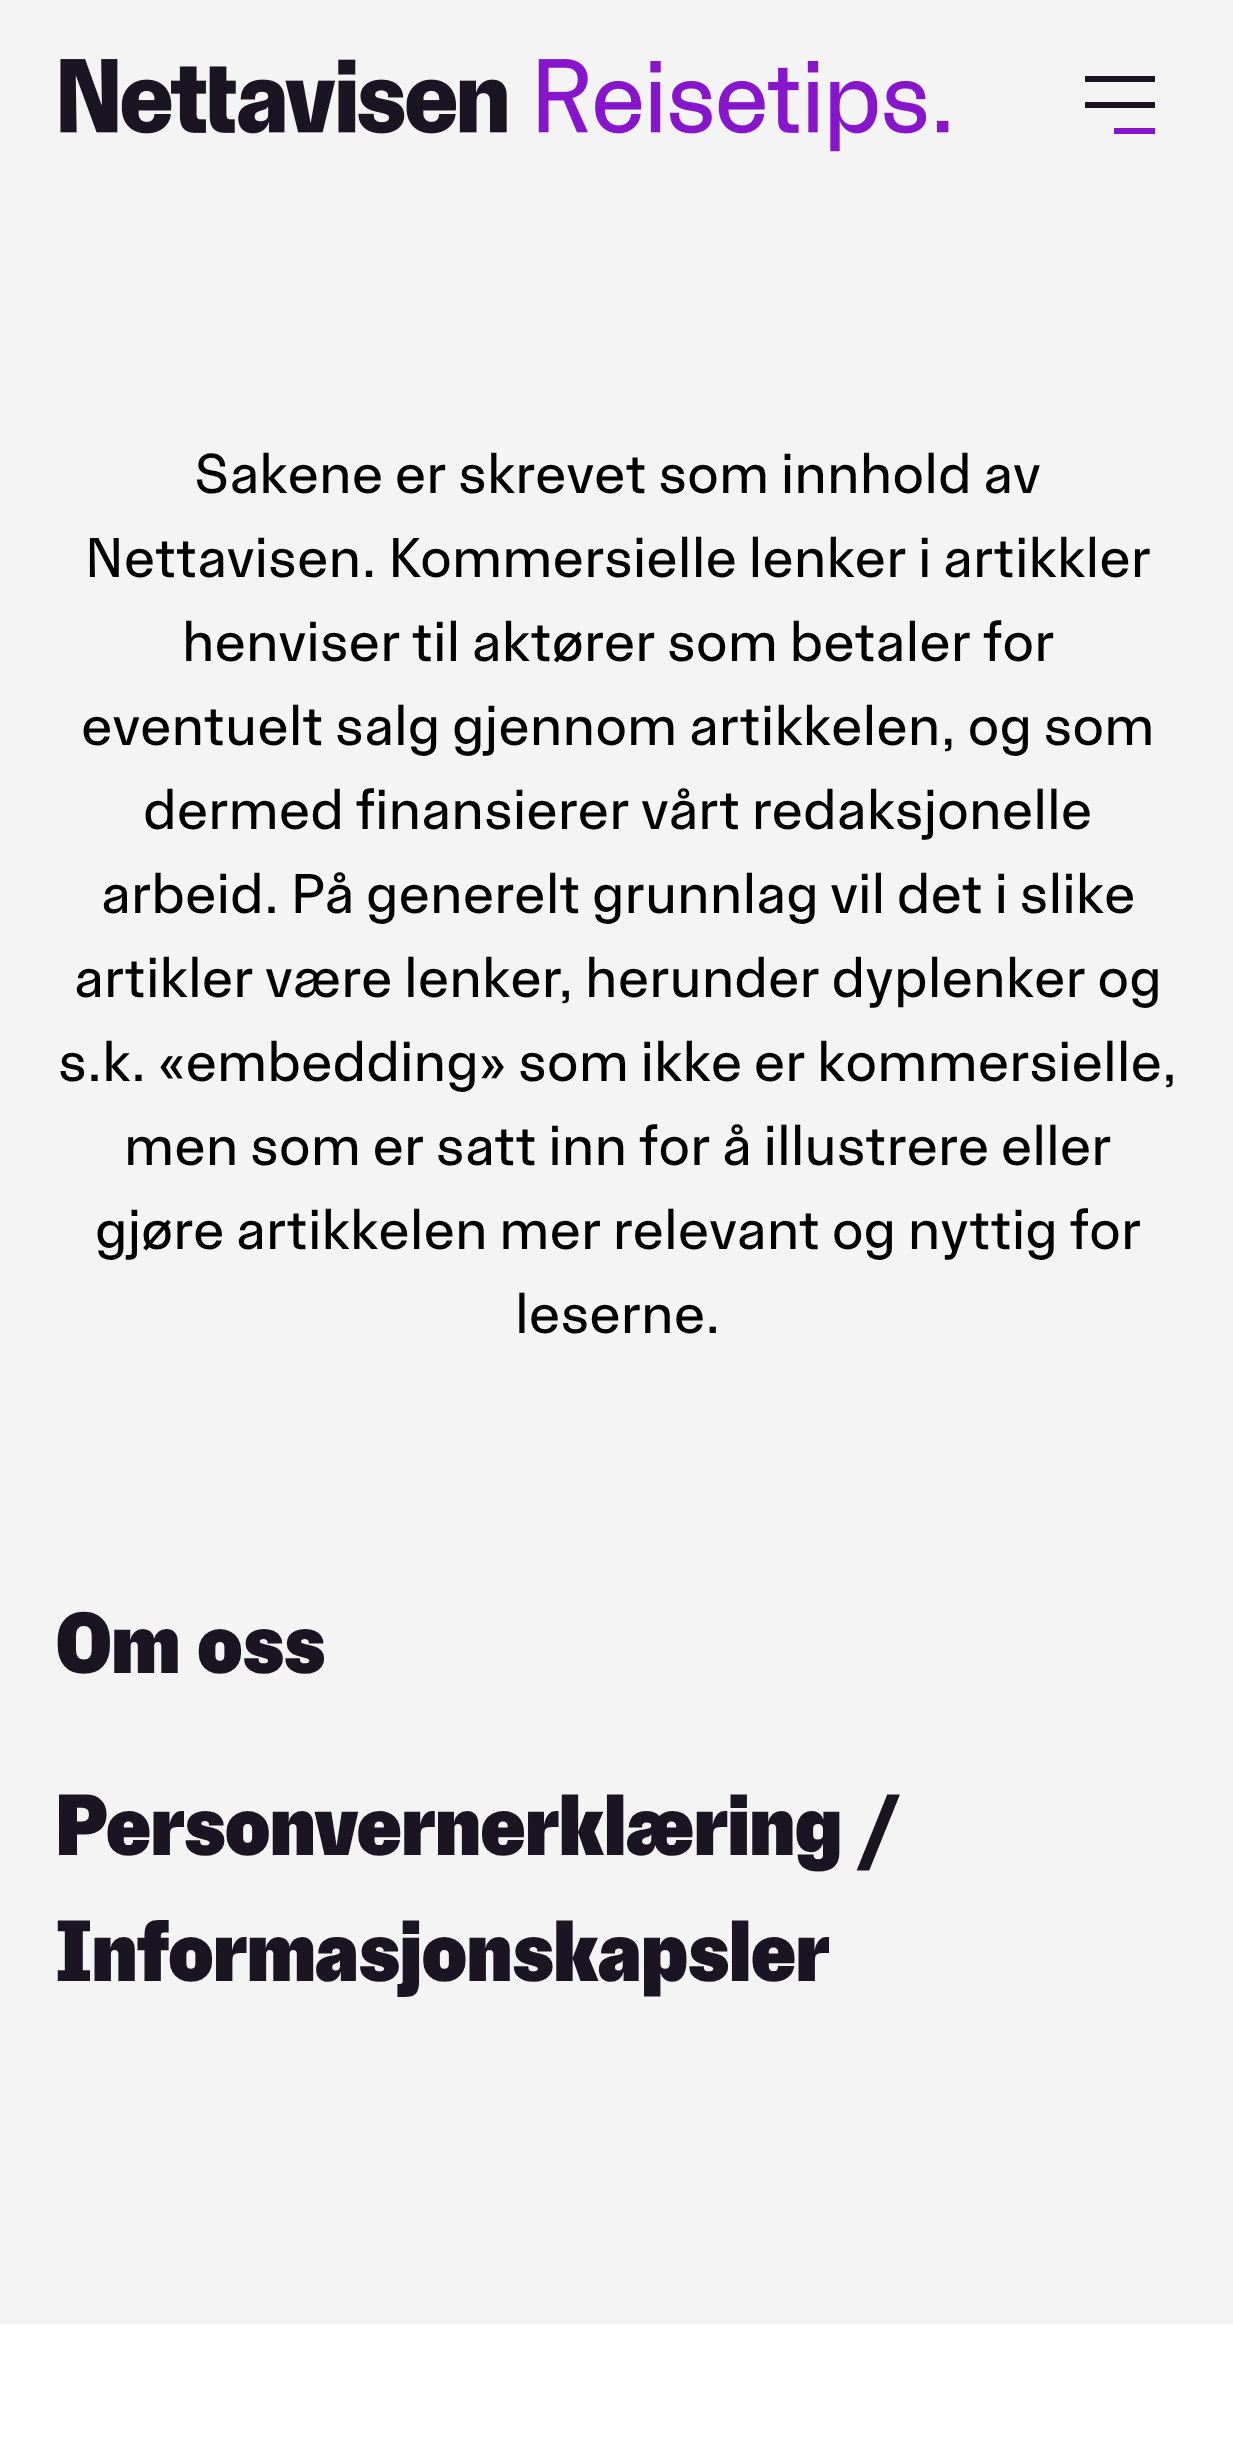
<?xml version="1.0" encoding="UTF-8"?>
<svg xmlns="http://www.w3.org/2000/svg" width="1233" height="2463">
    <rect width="100%" height="100%" fill="#FFFFFF"/>
    <rect x="0" y="0" width="1233" height="2324" fill="#F4F4F4"/>
    <image x="60" y="59" width="889" height="93" href="img_01.png"/>
    <rect x="1085" y="76" width="70" height="6" fill="#1A1423"/>
    <rect x="1085" y="102" width="70" height="6" fill="#1A1423"/>
    <rect x="1114" y="128" width="41" height="6" fill="#8615CC"/>
    <text x="194" y="493" font-family="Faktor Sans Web" font-size="56" fill="#000000">Sakene er skrevet som innhold av</text>
    <text x="85" y="577" font-family="Faktor Sans Web" font-size="56" fill="#000000">Nettavisen. Kommersielle lenker i artikkler</text>
    <text x="182" y="661" font-family="Faktor Sans Web" font-size="56" fill="#000000">henviser til aktører som betaler for</text>
    <text x="81" y="745" font-family="Faktor Sans Web" font-size="56" fill="#000000">eventuelt salg gjennom artikkelen, og som</text>
    <text x="143" y="829" font-family="Faktor Sans Web" font-size="56" fill="#000000">dermed finansierer vårt redaksjonelle</text>
    <text x="101" y="913" font-family="Faktor Sans Web" font-size="56" fill="#000000">arbeid. På generelt grunnlag vil det i slike</text>
    <text x="74" y="997" font-family="Faktor Sans Web" font-size="56" fill="#000000">artikler være lenker, herunder dyplenker og</text>
    <text x="58" y="1081" font-family="Faktor Sans Web" font-size="56" fill="#000000">s.k. «embedding» som ikke er kommersielle,</text>
    <text x="124" y="1165" font-family="Faktor Sans Web" font-size="56" fill="#000000">men som er satt inn for å illustrere eller</text>
    <text x="95" y="1249" font-family="Faktor Sans Web" font-size="56" fill="#000000">gjøre artikkelen mer relevant og nyttig for</text>
    <text x="515" y="1333" font-family="Faktor Sans Web" font-size="56" fill="#000000">leserne.</text>
    <text x="56" y="1673" font-family="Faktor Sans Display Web" font-size="84" font-weight="900" fill="#1A1423">Om oss</text>
    <text font-family="Faktor Sans Display Web" font-size="84" font-weight="900" fill="#1A1423">
        <tspan x="56" y="1855">Personvernerklæring /</tspan>
        <tspan x="56" y="1981">Informasjonskapsler</tspan>
    </text>
</svg>
